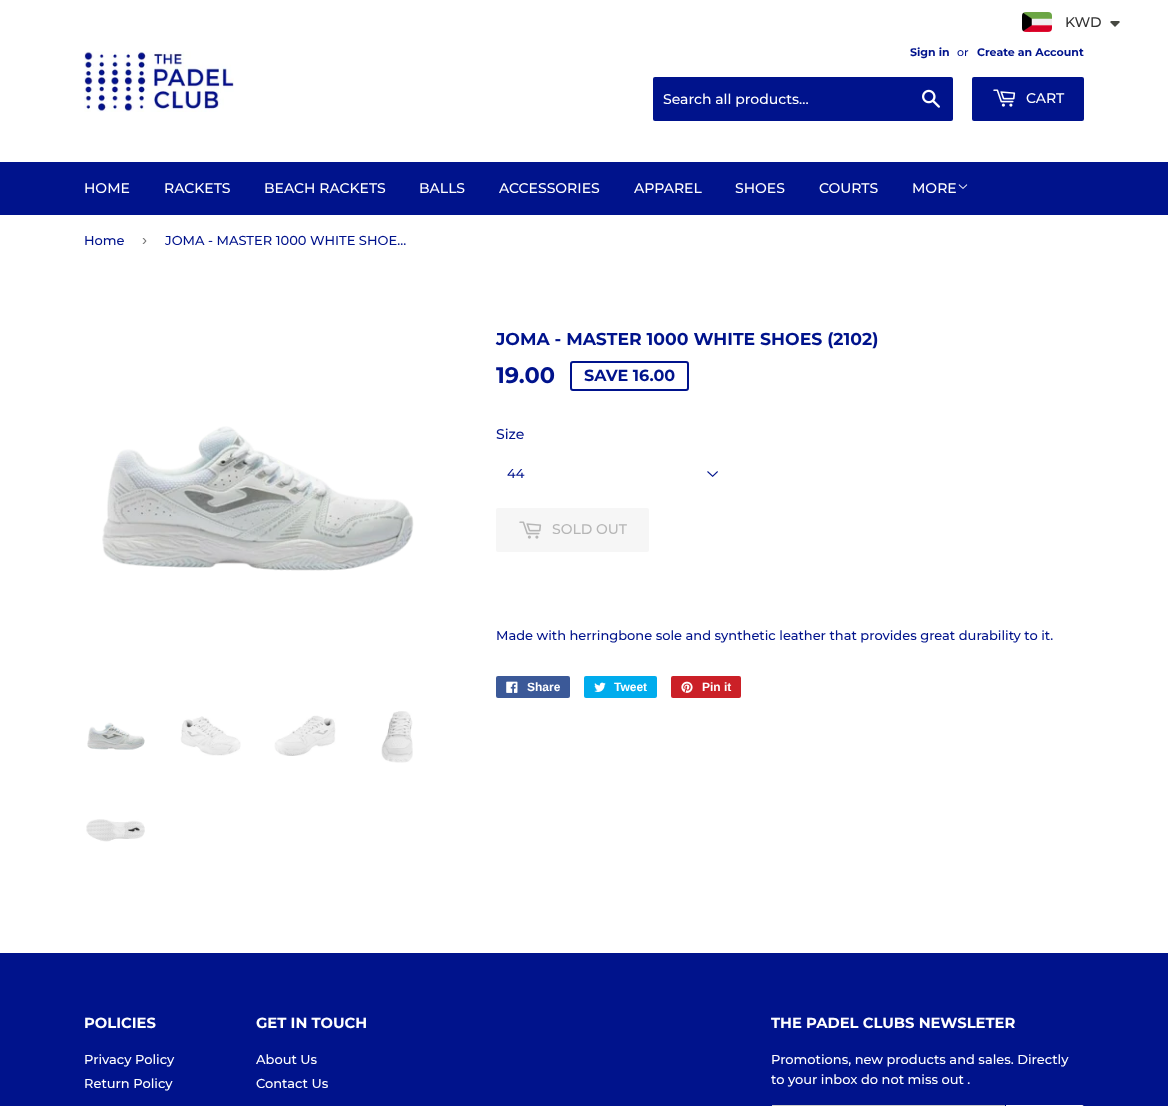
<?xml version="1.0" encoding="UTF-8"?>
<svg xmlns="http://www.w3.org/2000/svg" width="1168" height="1106">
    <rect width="100%" height="100%" fill="#FFFFFF"/>
    <image x="1022" y="12" width="30" height="20" href="img_01.png"/>
    <text x="1065" y="27" font-family="Montserrat" font-size="14" font-weight="500" fill="#333333">KWD</text>
    <path d="M 1112 21 C 1111 21 1110.5 21.5 1110 22 L 1115 27 L 1120 22 L 1119 21 Z" fill="#474942"/>
    <image x="84" y="51" width="150" height="61" href="img_02.png"/>
    <text x="910" y="56" font-family="Montserrat" font-size="11" font-weight="700" fill="#00138C">Sign in</text>
    <text x="957" y="56" font-family="Montserrat" font-size="11" font-weight="500" fill="#00138C">or</text>
    <text x="977" y="56" font-family="Montserrat" font-size="11" font-weight="700" fill="#00138C">Create an Account</text>
    <rect x="653" y="77" width="300" height="44" rx="2" fill="#00138C"/>
    <text x="663" y="104" font-family="Montserrat" font-size="14" font-weight="500" fill="#FFFFFF">Search all products...</text>
    <image x="922" y="89" width="18" height="19" href="img_03.png"/>
    <rect x="972" y="77" width="112" height="44" rx="2" fill="#00138C"/>
    <image x="993" y="89" width="23" height="18" href="img_04.png"/>
    <text x="1026" y="103" font-family="Montserrat" font-size="14" font-weight="500" fill="#FFFFFF">CART</text>
    <rect x="0" y="162" width="1168" height="53" fill="#00138C"/>
    <text x="84" y="193" font-family="Montserrat" font-size="14" font-weight="500" fill="#FFFFFF">HOME</text>
    <text x="164" y="193" font-family="Montserrat" font-size="14" font-weight="500" fill="#FFFFFF">RACKETS</text>
    <text x="264" y="193" font-family="Montserrat" font-size="14" font-weight="500" fill="#FFFFFF">BEACH RACKETS</text>
    <text x="419" y="193" font-family="Montserrat" font-size="14" font-weight="500" fill="#FFFFFF">BALLS</text>
    <text x="499" y="193" font-family="Montserrat" font-size="14" font-weight="500" fill="#FFFFFF">ACCESSORIES</text>
    <text x="634" y="193" font-family="Montserrat" font-size="14" font-weight="500" fill="#FFFFFF">APPAREL</text>
    <text x="735" y="193" font-family="Montserrat" font-size="14" font-weight="500" fill="#FFFFFF">SHOES</text>
    <text x="819" y="193" font-family="Montserrat" font-size="14" font-weight="500" fill="#FFFFFF">COURTS</text>
    <text x="912" y="193" font-family="Montserrat" font-size="14" font-weight="500" fill="#FFFFFF">MORE</text>
    <image x="958" y="184" width="10" height="5" href="img_05.png"/>
    <text x="84" y="245" font-family="Montserrat" font-size="13" font-weight="500" fill="#00138C">Home</text>
    <text x="142" y="245" font-family="Liberation Sans" font-size="15" fill="#767676">›</text>
    <text x="165" y="245" font-family="Montserrat" font-size="13" font-weight="500" fill="#00138C">JOMA - MASTER 1000 WHITE SHOE…</text>
    <image x="102" y="426" width="312" height="145" href="img_06.png"/>
    <image x="87" y="722" width="58" height="28" href="img_07.png"/>
    <image x="180" y="716" width="61" height="40" href="img_08.png"/>
    <image x="274" y="715" width="62" height="41" href="img_09.png"/>
    <image x="381" y="711" width="32" height="52" href="img_10.png"/>
    <image x="86" y="819" width="59" height="23" href="img_11.png"/>
    <text x="496" y="345" font-family="Montserrat" font-size="17.3" font-weight="700" fill="#00138C">JOMA - MASTER 1000 WHITE SHOES (2102)</text>
    <text x="496" y="383" font-family="Montserrat" font-size="22.5" font-weight="700" fill="#00138C">19.00</text>
    <rect x="571" y="362" width="117" height="28" rx="2" fill="none" stroke="#00138C" stroke-width="2"/>
    <text x="584" y="381" font-family="Montserrat" font-size="16" font-weight="700" fill="#00138C">SAVE 16.00</text>
    <text x="496" y="439" font-family="Montserrat" font-size="14" font-weight="500" fill="#00138C">Size</text>
    <image x="707" y="471" width="11" height="6" href="img_12.png"/>
    <text x="507" y="478" font-family="Montserrat" font-size="13" font-weight="500" fill="#00138C">44</text>
    <rect x="496" y="508" width="153" height="44" rx="2" fill="#F6F6F6"/>
    <image x="519" y="521" width="23" height="18" href="img_13.png"/>
    <text x="552" y="534" font-family="Montserrat" font-size="14" font-weight="500" fill="#B6B6B6">SOLD OUT</text>
    <text x="496" y="640" font-family="Montserrat" font-size="13" font-weight="500" fill="#00138C">Made with herringbone sole and synthetic leather that provides great durability to it.</text>
    <rect x="496" y="676" width="74" height="22" rx="2" fill="#3B5998"/>
    <image x="506" y="681" width="12" height="12" href="img_14.png"/>
    <text x="527" y="691" font-family="Liberation Sans" font-size="12" font-weight="700" fill="#FFFFFF">Share</text>
    <rect x="584" y="676" width="73" height="22" rx="2" fill="#00ACED"/>
    <image x="594" y="682" width="12" height="10" href="img_15.png"/>
    <text x="614" y="691" font-family="Liberation Sans" font-size="12" font-weight="700" fill="#FFFFFF">Tweet</text>
    <rect x="671" y="676" width="70" height="22" rx="2" fill="#CB2027"/>
    <image x="681" y="681" width="12" height="12" href="img_16.png"/>
    <text x="702" y="691" font-family="Liberation Sans" font-size="12" font-weight="700" fill="#FFFFFF">Pin it</text>
    <rect x="0" y="953" width="1168" height="153" fill="#00138C"/>
    <text x="84" y="1028" font-family="Montserrat" font-size="14.75" font-weight="700" fill="#FFFFFF">POLICIES</text>
    <text font-family="Montserrat" font-size="13" font-weight="500" fill="#FFFFFF">
        <tspan x="84" y="1064">Privacy Policy</tspan>
        <tspan x="84" y="1088">Return Policy</tspan>
    </text>
    <text x="256" y="1028" font-family="Montserrat" font-size="14.75" font-weight="700" fill="#FFFFFF">GET IN TOUCH</text>
    <text font-family="Montserrat" font-size="13" font-weight="500" fill="#FFFFFF">
        <tspan x="256" y="1064">About Us</tspan>
        <tspan x="256" y="1088">Contact Us</tspan>
    </text>
    <text x="771" y="1028" font-family="Montserrat" font-size="14.75" font-weight="700" fill="#FFFFFF">THE PADEL CLUBS NEWSLETER</text>
    <text font-family="Montserrat" font-size="13" font-weight="500" fill="#FFFFFF">
        <tspan x="771" y="1064">Promotions, new products and sales. Directly</tspan>
        <tspan x="771" y="1084">to your inbox do not miss out .</tspan>
    </text>
    <rect x="772" y="1105" width="233" height="1" fill="#CCCCCC"/>
    <path d="M 1006 1105 H 1082 C 1083 1105 1084 1106 1084 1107 V 1106 C 1084 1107 1083 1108 1082 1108 H 1006 Z" fill="#FFFFFF"/>
</svg>
